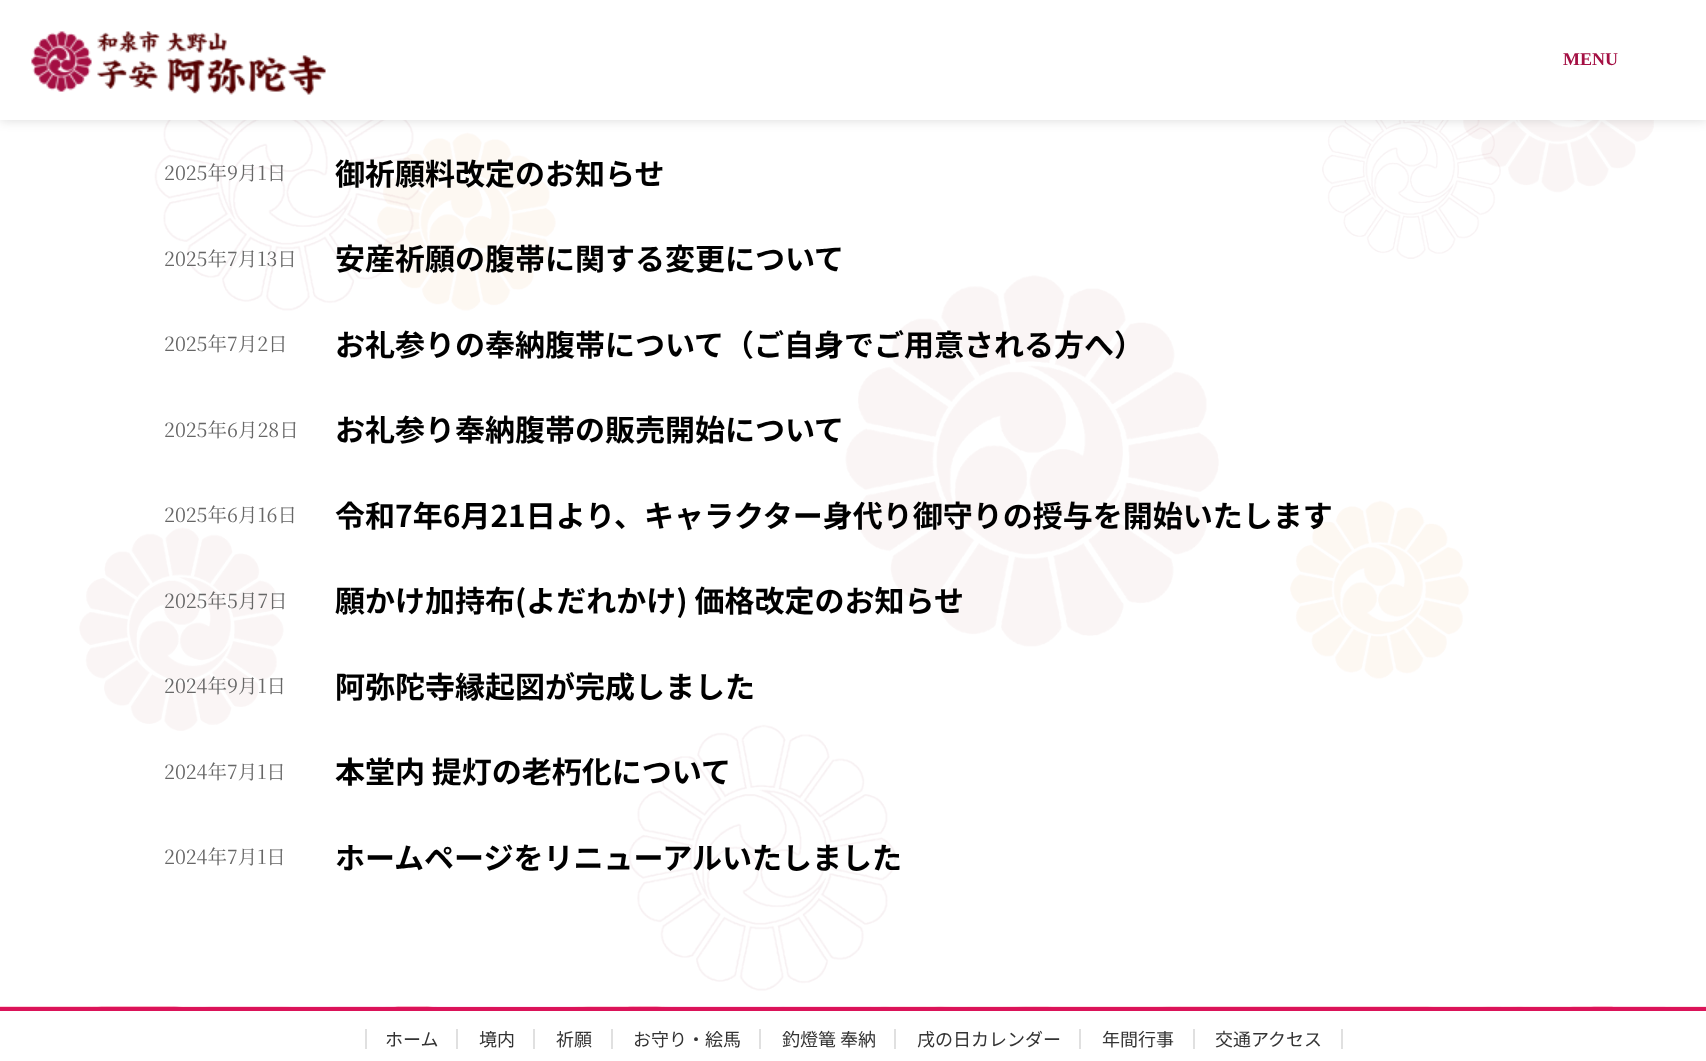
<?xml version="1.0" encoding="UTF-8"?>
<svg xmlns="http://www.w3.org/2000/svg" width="1706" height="1061">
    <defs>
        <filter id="blur1" x="-50%" y="-200%" width="200%" height="500%"><feGaussianBlur stdDeviation="6"/></filter>
    </defs>
    <rect width="100%" height="100%" fill="#FFFFFF"/>
    <image x="79" y="120" width="1575" height="871" href="img_01.png"/>
    <rect x="0" y="0" width="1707" height="120" fill="#000000" fill-opacity="0.15" filter="url(#blur1)"/>
    <rect x="0" y="0" width="1706" height="120" fill="#FFFFFF"/>
    <image x="31" y="31" width="295" height="64" href="img_02.png"/>
    <text x="1563" y="65" font-family="Liberation Serif" font-size="18" font-weight="700" fill="#A40F43">MENU</text>
    <text x="164" y="180" font-family="Noto Serif JP" font-size="19.5" fill="#666666">2025年9月1日</text>
    <text x="335" y="185" font-family="Noto Sans JP" font-size="30" font-weight="700" fill="#000000">御祈願料改定のお知らせ</text>
    <text x="164" y="266" font-family="Noto Serif JP" font-size="19.5" fill="#666666">2025年7月13日</text>
    <text x="335" y="270" font-family="Noto Sans JP" font-size="30" font-weight="700" fill="#000000">安産祈願の腹帯に関する変更について</text>
    <text x="164" y="351" font-family="Noto Serif JP" font-size="19.5" fill="#666666">2025年7月2日</text>
    <text x="335" y="356" font-family="Noto Sans JP" font-size="30" font-weight="700" fill="#000000">お礼参りの奉納腹帯について（ご自身でご用意される方へ）</text>
    <text x="164" y="437" font-family="Noto Serif JP" font-size="19.5" fill="#666666">2025年6月28日</text>
    <text x="335" y="441" font-family="Noto Sans JP" font-size="30" font-weight="700" fill="#000000">お礼参り奉納腹帯の販売開始について</text>
    <text x="164" y="522" font-family="Noto Serif JP" font-size="19.5" fill="#666666">2025年6月16日</text>
    <text x="335" y="527" font-family="Noto Sans JP" font-size="30" font-weight="700" fill="#000000">令和7年6月21日より、キャラクター身代り御守りの授与を開始いたします</text>
    <text x="164" y="608" font-family="Noto Serif JP" font-size="19.5" fill="#666666">2025年5月7日</text>
    <text x="335" y="612" font-family="Noto Sans JP" font-size="30" font-weight="700" fill="#000000">願かけ加持布(よだれかけ) 価格改定のお知らせ</text>
    <text x="164" y="693" font-family="Noto Serif JP" font-size="19.5" fill="#666666">2024年9月1日</text>
    <text x="335" y="698" font-family="Noto Sans JP" font-size="30" font-weight="700" fill="#000000">阿弥陀寺縁起図が完成しました</text>
    <text x="164" y="779" font-family="Noto Serif JP" font-size="19.5" fill="#666666">2024年7月1日</text>
    <text x="335" y="783" font-family="Noto Sans JP" font-size="30" font-weight="700" fill="#000000">本堂内 提灯の老朽化について</text>
    <text x="164" y="864" font-family="Noto Serif JP" font-size="19.5" fill="#666666">2024年7月1日</text>
    <text x="335" y="869" font-family="Noto Sans JP" font-size="30" font-weight="700" fill="#000000">ホームページをリニューアルいたしました</text>
    <image x="0" y="1006" width="1706" height="1" href="img_03.png"/>
    <rect x="0" y="1007" width="1706" height="4" fill="#DB1359"/>
    <rect x="456" y="1029" width="2" height="20" fill="#E0E0E0"/>
    <rect x="365" y="1029" width="2" height="20" fill="#E0E0E0"/>
    <text x="385" y="1046" font-family="Noto Sans JP" font-size="18" fill="#333333">ホーム</text>
    <rect x="533" y="1029" width="2" height="20" fill="#E0E0E0"/>
    <text x="479" y="1046" font-family="Noto Sans JP" font-size="18" fill="#333333">境内</text>
    <rect x="611" y="1029" width="2" height="20" fill="#E0E0E0"/>
    <text x="556" y="1046" font-family="Noto Sans JP" font-size="18" fill="#333333">祈願</text>
    <rect x="759" y="1029" width="2" height="20" fill="#E0E0E0"/>
    <text x="633" y="1046" font-family="Noto Sans JP" font-size="18" fill="#333333">お守り・絵馬</text>
    <rect x="894" y="1029" width="2" height="20" fill="#E0E0E0"/>
    <text x="782" y="1046" font-family="Noto Sans JP" font-size="18" fill="#333333">釣燈篭 奉納</text>
    <rect x="1079" y="1029" width="2" height="20" fill="#E0E0E0"/>
    <text x="917" y="1046" font-family="Noto Sans JP" font-size="18" fill="#333333">戌の日カレンダー</text>
    <rect x="1193" y="1029" width="2" height="20" fill="#E0E0E0"/>
    <text x="1102" y="1046" font-family="Noto Sans JP" font-size="18" fill="#333333">年間行事</text>
    <rect x="1341" y="1029" width="2" height="20" fill="#E0E0E0"/>
    <text x="1215" y="1046" font-family="Noto Sans JP" font-size="18" fill="#333333">交通アクセス</text>
</svg>
